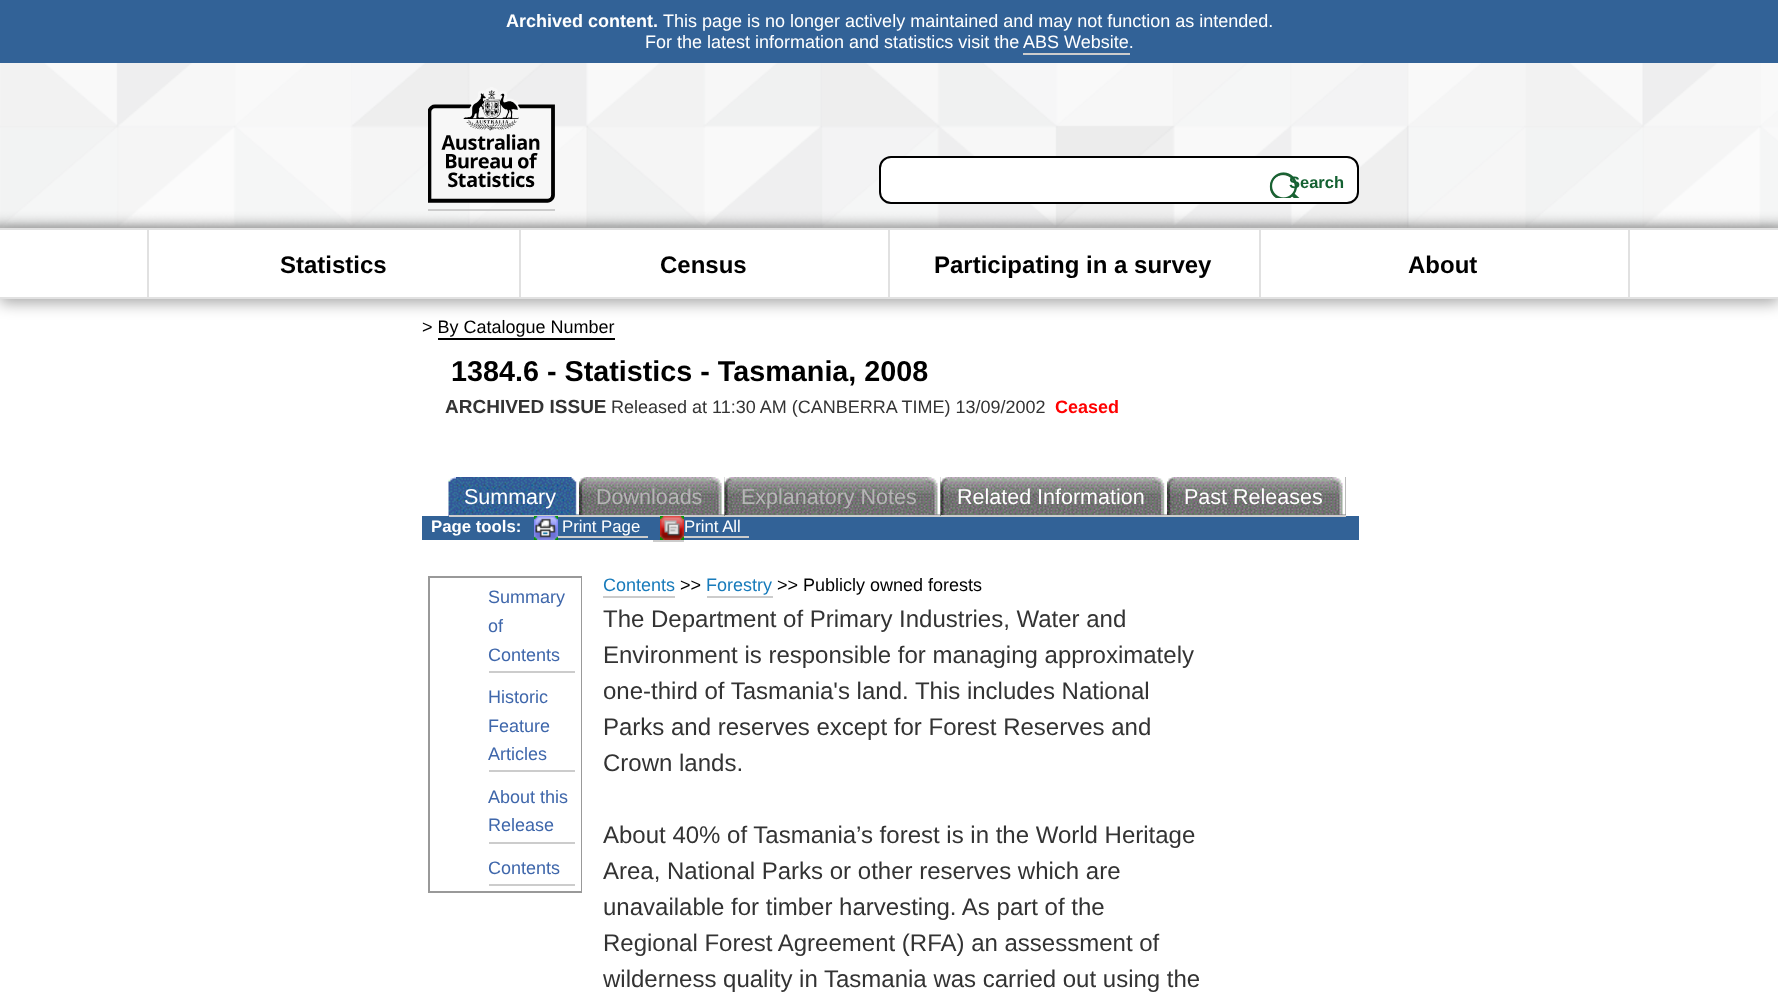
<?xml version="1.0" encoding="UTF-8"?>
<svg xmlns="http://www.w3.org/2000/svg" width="1778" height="1006">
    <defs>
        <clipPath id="clip1"><path d="M 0 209 H 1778 V 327 H 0 Z M 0 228 H 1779 V 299 H 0 Z" clip-rule="evenodd"/></clipPath>
        <filter id="blur1" x="-50%" y="-200%" width="200%" height="500%"><feGaussianBlur stdDeviation="7.5"/></filter>
    </defs>
    <rect width="100%" height="100%" fill="#FFFFFF"/>
    <rect x="0" y="0" width="1778" height="63" fill="#326297"/>
    <text x="506" y="27" font-family="Liberation Sans" font-size="18" font-weight="700" fill="#FFFFFF">Archived content.</text>
    <text x="663" y="27" font-family="Liberation Sans" font-size="18" fill="#FFFFFF">This page is no longer actively maintained and may not function as intended.</text>
    <text x="645" y="48" font-family="Liberation Sans" font-size="18" fill="#FFFFFF">For the latest information and statistics visit the</text>
    <text x="1023" y="48" font-family="Liberation Sans" font-size="18" fill="#FFFFFF">ABS Website.</text>
    <rect x="1023" y="53" width="107" height="2" fill="#CCCCCC"/>
    <image x="0" y="63" width="1778" height="165" href="img_01.png"/>
    <g clip-path="url(#clip1)">
        <rect x="0" y="233" width="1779" height="70" fill="#000000" fill-opacity="0.35" filter="url(#blur1)"/>
    </g>
    <rect x="428" y="209" width="127" height="2" fill="#CCCCCC"/>
    <image x="428" y="87" width="127" height="116" href="img_02.png"/>
    <rect x="880" y="157" width="478" height="46" rx="11" fill="#FFFFFF" stroke="#000000" stroke-width="2"/>
    <image x="1269" y="172" width="31" height="26" href="img_03.png"/>
    <text x="1289" y="188" font-family="Liberation Sans" font-size="16.5" font-weight="700" fill="#146132">Search</text>
    <rect x="0" y="228" width="1778" height="2" fill="#E1E1E1"/>
    <rect x="0" y="297" width="1778" height="2" fill="#E1E1E1"/>
    <rect x="519" y="230" width="2" height="67" fill="#E1E1E1"/>
    <rect x="147" y="230" width="2" height="67" fill="#E1E1E1"/>
    <text x="280" y="273" font-family="Liberation Sans" font-size="24" font-weight="700" fill="#000000">Statistics</text>
    <rect x="888" y="230" width="2" height="67" fill="#E1E1E1"/>
    <text x="660" y="273" font-family="Liberation Sans" font-size="24" font-weight="700" fill="#000000">Census</text>
    <rect x="1259" y="230" width="2" height="67" fill="#E1E1E1"/>
    <text x="934" y="273" font-family="Liberation Sans" font-size="24" font-weight="700" fill="#000000">Participating in a survey</text>
    <rect x="1628" y="230" width="2" height="67" fill="#E1E1E1"/>
    <text x="1408" y="273" font-family="Liberation Sans" font-size="24" font-weight="700" fill="#000000">About</text>
    <text x="422" y="333" font-family="Liberation Sans" font-size="18" fill="#000000">&gt; By Catalogue Number</text>
    <rect x="438" y="338" width="177" height="2" fill="#000000"/>
    <text x="451" y="381" font-family="Liberation Sans" font-size="28.75" font-weight="700" fill="#000000">1384.6 - Statistics - Tasmania, 2008</text>
    <text x="445" y="413" font-family="Liberation Sans" font-size="19" font-weight="700" fill="#333333">ARCHIVED ISSUE</text>
    <text x="611" y="413" font-family="Liberation Sans" font-size="18" fill="#333333">Released at 11:30 AM (CANBERRA TIME) 13/09/2002</text>
    <text x="1055" y="413" font-family="Liberation Sans" font-size="18" font-weight="700" fill="#FF0000">Ceased</text>
    <rect x="457" y="514" width="122" height="1" fill="#326297"/>
    <image x="448" y="477" width="10" height="39" href="img_04.png"/>
    <rect x="422" y="516" width="937" height="24" fill="#326297"/>
    <rect x="449" y="515" width="276" height="2" fill="#CCCCCC"/>
    <image x="456" y="477" width="123" height="38" href="img_05.png"/>
    <text x="464" y="504" font-family="Liberation Sans" font-size="21.5" fill="#FFFFFF">Summary</text>
    <rect x="586" y="477" width="139" height="38" fill="#777777"/>
    <image x="579" y="477" width="8" height="38" href="img_06.png"/>
    <image x="586" y="477" width="139" height="38" href="img_07.png"/>
    <text x="596" y="504" font-family="Liberation Sans" font-size="21.5" fill="#B6B6B6">Downloads</text>
    <rect x="732" y="477" width="209" height="38" fill="#777777"/>
    <image x="724" y="477" width="8" height="39" href="img_08.png"/>
    <rect x="725" y="515" width="216" height="2" fill="#CCCCCC"/>
    <image x="732" y="477" width="209" height="38" href="img_09.png"/>
    <text x="741" y="504" font-family="Liberation Sans" font-size="21.5" fill="#B6B6B6">Explanatory Notes</text>
    <rect x="948" y="514" width="219" height="1" fill="#777777"/>
    <image x="940" y="477" width="8" height="39" href="img_10.png"/>
    <rect x="941" y="515" width="405" height="2" fill="#CCCCCC"/>
    <image x="948" y="477" width="219" height="38" href="img_11.png"/>
    <text x="957" y="504" font-family="Liberation Sans" font-size="21.5" fill="#FFFFFF">Related Information</text>
    <rect x="1174" y="477" width="172" height="38" fill="#777777"/>
    <image x="1167" y="477" width="8" height="38" href="img_06.png"/>
    <image x="1174" y="477" width="172" height="38" href="img_12.png"/>
    <text x="1184" y="504" font-family="Liberation Sans" font-size="21.5" fill="#FFFFFF">Past Releases</text>
    <text x="431" y="532" font-family="Liberation Sans" font-size="16.75" font-weight="700" fill="#FFFFFF">Page tools:</text>
    <image x="534" y="516" width="24" height="24" href="img_13.png"/>
    <text x="562" y="532" font-family="Liberation Sans" font-size="16.75" fill="#FFFFFF">Print Page</text>
    <rect x="558" y="536" width="90" height="2" fill="#CCCCCC"/>
    <image x="660" y="516" width="24" height="24" href="img_14.png"/>
    <text x="684" y="532" font-family="Liberation Sans" font-size="16.75" fill="#FFFFFF">Print All</text>
    <rect x="653" y="540" width="31" height="2" fill="#CCCCCC"/>
    <rect x="684" y="536" width="65" height="2" fill="#CCCCCC"/>
    <rect x="429" y="577" width="152" height="315" fill="none" stroke="#999999" stroke-width="2"/>
    <rect x="580" y="578" width="1" height="313" fill="#FFFFFF"/>
    <rect x="489" y="671" width="86" height="2" fill="#CCCCCC"/>
    <text font-family="Liberation Sans" font-size="18" fill="#3F67AB">
        <tspan x="488" y="603">Summary</tspan>
        <tspan x="488" y="632">of</tspan>
        <tspan x="488" y="661">Contents</tspan>
    </text>
    <rect x="489" y="770" width="86" height="2" fill="#CCCCCC"/>
    <text font-family="Liberation Sans" font-size="18" fill="#3F67AB">
        <tspan x="488" y="703">Historic</tspan>
        <tspan x="488" y="732">Feature</tspan>
        <tspan x="488" y="760">Articles</tspan>
    </text>
    <rect x="489" y="842" width="86" height="2" fill="#CCCCCC"/>
    <text font-family="Liberation Sans" font-size="18" fill="#3F67AB">
        <tspan x="488" y="803">About this</tspan>
        <tspan x="488" y="831">Release</tspan>
    </text>
    <rect x="489" y="884" width="86" height="2" fill="#CCCCCC"/>
    <text x="488" y="874" font-family="Liberation Sans" font-size="18" fill="#3F67AB">Contents</text>
    <text x="603" y="591" font-family="Liberation Sans" font-size="18" fill="#187BBB">Contents</text>
    <rect x="603" y="596" width="72" height="2" fill="#CCCCCC"/>
    <text x="680" y="591" font-family="Liberation Sans" font-size="18" fill="#000000">&gt;&gt;</text>
    <text x="706" y="591" font-family="Liberation Sans" font-size="18" fill="#187BBB">Forestry</text>
    <rect x="707" y="596" width="66" height="2" fill="#CCCCCC"/>
    <text x="777" y="591" font-family="Liberation Sans" font-size="18" fill="#000000">&gt;&gt; Publicly owned forests</text>
    <text font-family="Liberation Sans" font-size="24" fill="#333333">
        <tspan x="603" y="627">The Department of Primary Industries, Water and</tspan>
        <tspan x="603" y="663">Environment is responsible for managing approximately</tspan>
        <tspan x="603" y="699">one-third of Tasmania's land. This includes National</tspan>
        <tspan x="603" y="735">Parks and reserves except for Forest Reserves and</tspan>
        <tspan x="603" y="771">Crown lands.</tspan>
    </text>
    <text font-family="Liberation Sans" font-size="24" fill="#333333">
        <tspan x="603" y="843">About 40% of Tasmania’s forest is in the World Heritage</tspan>
        <tspan x="603" y="879">Area, National Parks or other reserves which are</tspan>
        <tspan x="603" y="915">unavailable for timber harvesting. As part of the</tspan>
        <tspan x="603" y="951">Regional Forest Agreement (RFA) an assessment of</tspan>
        <tspan x="603" y="987">wilderness quality in Tasmania was carried out using the</tspan>
    </text>
</svg>
